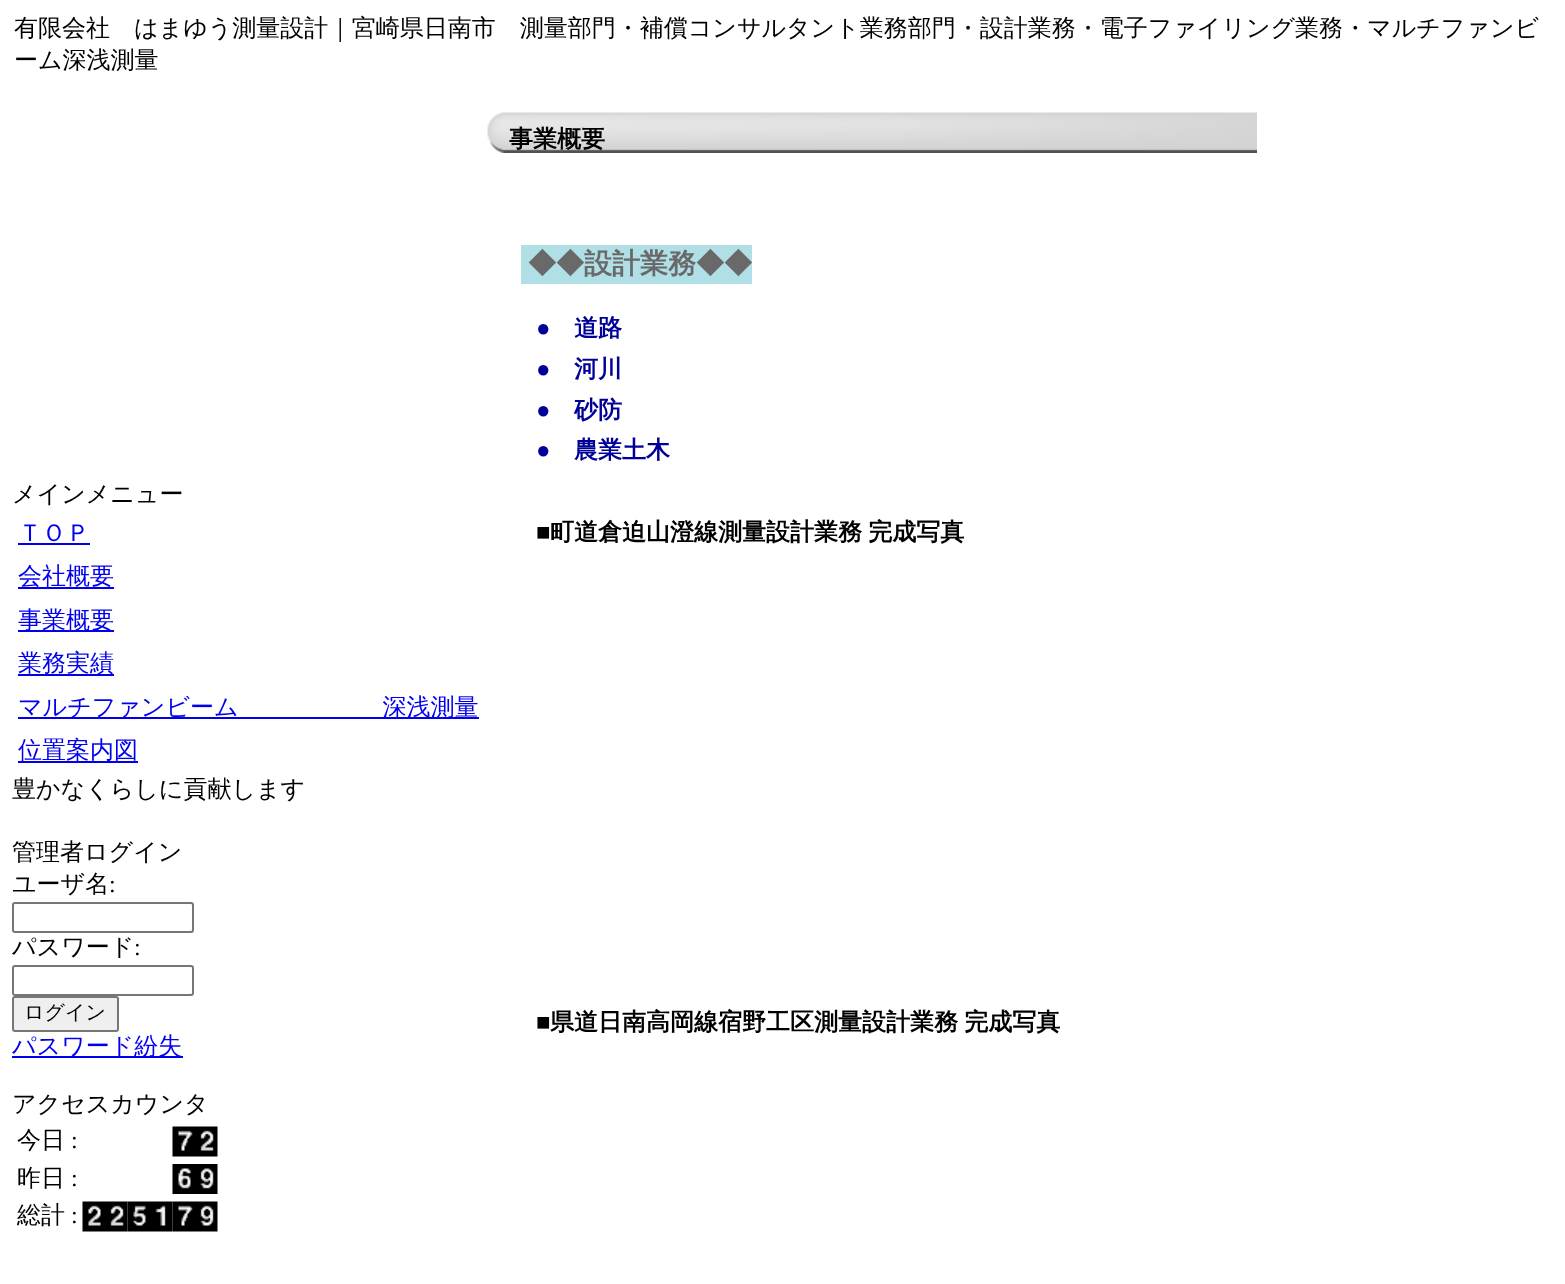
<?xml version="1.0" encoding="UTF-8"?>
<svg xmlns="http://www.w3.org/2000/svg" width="1565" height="1284">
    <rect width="100%" height="100%" fill="#FFFFFF"/>
    <text font-family="WenQuanYi Zen Hei" font-size="24" font-weight="500" fill="#000000">
        <tspan x="14" y="36">有限会社　はまゆう測量設計｜宮崎県日南市　測量部門・補償コンサルタント業務部門・設計業務・電子ファイリング業務・マルチファンビ</tspan>
        <tspan x="14" y="68">ーム深浅測量</tspan>
    </text>
    <text x="12" y="502" font-family="WenQuanYi Zen Hei" font-size="24" font-weight="500" fill="#000000">メインメニュー</text>
    <text x="18" y="541" font-family="WenQuanYi Zen Hei" font-size="24" font-weight="500" fill="#0000EE">ＴＯＰ</text>
    <rect x="18" y="543" width="72" height="2" fill="#0000EE"/>
    <rect x="18" y="587" width="96" height="2" fill="#0000EE"/>
    <text x="18" y="584" font-family="WenQuanYi Zen Hei" font-size="24" font-weight="500" fill="#0000EE">会社概要</text>
    <rect x="18" y="630" width="96" height="2" fill="#0000EE"/>
    <text x="18" y="628" font-family="WenQuanYi Zen Hei" font-size="24" font-weight="500" fill="#0000EE">事業概要</text>
    <rect x="18" y="674" width="96" height="2" fill="#0000EE"/>
    <text x="18" y="671" font-family="WenQuanYi Zen Hei" font-size="24" font-weight="500" fill="#0000EE">業務実績</text>
    <rect x="18" y="717" width="461" height="2" fill="#0000EE"/>
    <text x="18" y="715" font-family="WenQuanYi Zen Hei" font-size="24" font-weight="500" fill="#0000EE">マルチファンビーム　　　　　　深浅測量</text>
    <rect x="18" y="761" width="120" height="2" fill="#0000EE"/>
    <text x="18" y="758" font-family="WenQuanYi Zen Hei" font-size="24" font-weight="500" fill="#0000EE">位置案内図</text>
    <text x="12" y="797" font-family="WenQuanYi Zen Hei" font-size="24" font-weight="500" fill="#000000">豊かなくらしに貢献します</text>
    <text font-family="WenQuanYi Zen Hei" font-size="24" font-weight="500" fill="#000000">
        <tspan x="12" y="860">管理者ログイン</tspan>
        <tspan x="12" y="892">ユーザ名</tspan>
    </text>
    <text x="109" y="892" font-family="Liberation Serif" font-size="24" fill="#000000">:</text>
    <rect x="13" y="903" width="180" height="29" rx="2" fill="none" stroke="#767676" stroke-width="2"/>
    <text x="12" y="955" font-family="WenQuanYi Zen Hei" font-size="24" font-weight="500" fill="#000000">パスワード</text>
    <text x="134" y="955" font-family="Liberation Serif" font-size="24" fill="#000000">:</text>
    <rect x="13" y="966" width="180" height="29" rx="2" fill="none" stroke="#767676" stroke-width="2"/>
    <rect x="13" y="997" width="105" height="34" rx="2" fill="#EFEFEF" stroke="#767676" stroke-width="2"/>
    <text x="24" y="1019" font-family="WenQuanYi Zen Hei" font-size="20" font-weight="500" fill="#000000">ログイン</text>
    <rect x="12" y="1056" width="171" height="2" fill="#0000EE"/>
    <text x="12" y="1054" font-family="WenQuanYi Zen Hei" font-size="24" font-weight="500" fill="#0000EE">パスワード紛失</text>
    <text x="12" y="1112" font-family="WenQuanYi Zen Hei" font-size="24" font-weight="500" fill="#000000">アクセスカウンタ</text>
    <text x="17" y="1148" font-family="WenQuanYi Zen Hei" font-size="24" font-weight="500" fill="#000000">今日</text>
    <text x="71" y="1148" font-family="Liberation Serif" font-size="24" fill="#000000">:</text>
    <image x="172" y="1126" width="23" height="31" href="img_01.png"/>
    <image x="195" y="1126" width="23" height="31" href="img_02.png"/>
    <text x="17" y="1186" font-family="WenQuanYi Zen Hei" font-size="24" font-weight="500" fill="#000000">昨日</text>
    <text x="71" y="1186" font-family="Liberation Serif" font-size="24" fill="#000000">:</text>
    <image x="172" y="1164" width="23" height="30" href="img_03.png"/>
    <image x="195" y="1164" width="23" height="30" href="img_04.png"/>
    <text x="17" y="1223" font-family="WenQuanYi Zen Hei" font-size="24" font-weight="500" fill="#000000">総計</text>
    <text x="71" y="1223" font-family="Liberation Serif" font-size="24" fill="#000000">:</text>
    <image x="82" y="1201" width="23" height="31" href="img_05.png"/>
    <image x="105" y="1201" width="23" height="31" href="img_02.png"/>
    <image x="127" y="1201" width="23" height="31" href="img_06.png"/>
    <image x="150" y="1201" width="23" height="31" href="img_07.png"/>
    <image x="172" y="1201" width="23" height="31" href="img_08.png"/>
    <image x="195" y="1201" width="23" height="31" href="img_09.png"/>
    <image x="487" y="112" width="770" height="41" href="img_10.png"/>
    <text x="509" y="147" font-family="WenQuanYi Zen Hei" font-size="24" font-weight="700" fill="#000000">事業概要</text>
    <rect x="521" y="245" width="231" height="39" fill="#B0E0E6"/>
    <text x="528" y="273" font-family="WenQuanYi Zen Hei" font-size="28" font-weight="700" fill="#696969">◆◆設計業務◆◆</text>
    <text x="536" y="336" font-family="Noto Sans" font-size="24" font-weight="100" fill="#000099">●</text>
    <text x="574" y="336" font-family="WenQuanYi Zen Hei" font-size="24" font-weight="700" fill="#000099">道路</text>
    <text x="536" y="377" font-family="Liberation Serif" font-size="24" font-weight="700" fill="#000099">●</text>
    <text x="574" y="377" font-family="WenQuanYi Zen Hei" font-size="24" font-weight="700" fill="#000099">河川</text>
    <text x="536" y="418" font-family="Liberation Serif" font-size="24" font-weight="700" fill="#000099">●</text>
    <text x="574" y="418" font-family="WenQuanYi Zen Hei" font-size="24" font-weight="700" fill="#000099">砂防</text>
    <text x="536" y="458" font-family="Liberation Serif" font-size="24" font-weight="700" fill="#000099">●</text>
    <text x="574" y="458" font-family="WenQuanYi Zen Hei" font-size="24" font-weight="700" fill="#000099">農業土木</text>
    <text x="536" y="540" font-family="Liberation Serif" font-size="24" font-weight="700" fill="#000000">■</text>
    <text x="550" y="540" word-spacing="-1" font-family="WenQuanYi Zen Hei" font-size="24" font-weight="700" fill="#000000">町道倉迫山澄線測量設計業務 完成写真</text>
    <text x="536" y="1030" font-family="Liberation Serif" font-size="24" font-weight="700" fill="#000000">■</text>
    <text x="550" y="1030" word-spacing="-1" font-family="WenQuanYi Zen Hei" font-size="24" font-weight="700" fill="#000000">県道日南高岡線宿野工区測量設計業務 完成写真</text>
</svg>
